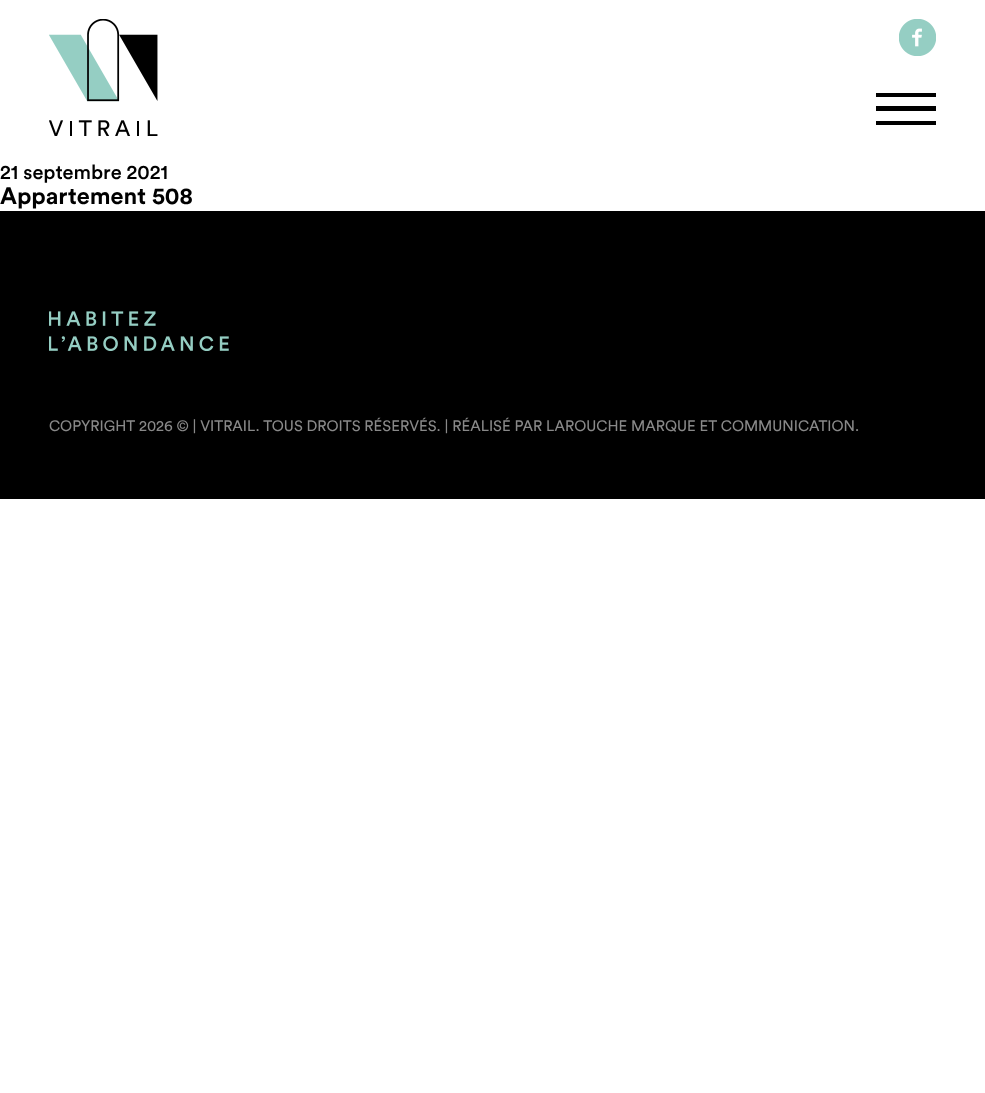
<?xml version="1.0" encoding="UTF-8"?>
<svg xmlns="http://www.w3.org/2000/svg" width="985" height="1093">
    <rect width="100%" height="100%" fill="#FFFFFF"/>
    <image x="49" y="19" width="109" height="117" href="img_01.png"/>
    <image x="899" y="19" width="37" height="37" href="img_02.png"/>
    <rect x="876" y="106" width="60" height="5" fill="#000000"/>
    <rect x="876" y="93" width="60" height="4" fill="#000000"/>
    <rect x="876" y="121" width="60" height="4" fill="#000000"/>
    <text x="0" y="179" font-family="Circular" font-size="20" font-weight="500" fill="#000000">21 septembre 2021</text>
    <text x="0" y="204" font-family="Circular" font-size="23.5" font-weight="700" fill="#000000">Appartement 508</text>
    <rect x="0" y="211" width="985" height="288" fill="#000000"/>
    <image x="49" y="311" width="180" height="40" href="img_03.png"/>
    <text x="49" y="431" font-family="Circular" font-size="15" fill="#898989">COPYRIGHT 2026 © | VITRAIL. TOUS DROITS RÉSERVÉS. | RÉALISÉ PAR LAROUCHE MARQUE ET COMMUNICATION.</text>
</svg>
